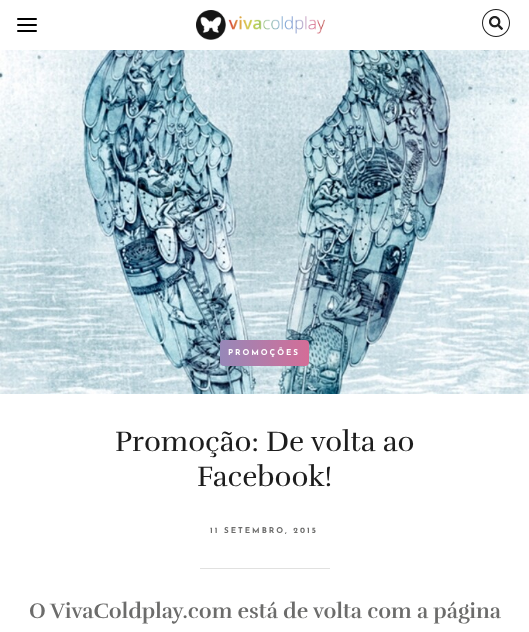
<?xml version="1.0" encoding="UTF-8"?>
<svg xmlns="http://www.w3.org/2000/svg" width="529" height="632">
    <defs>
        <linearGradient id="g1" gradientUnits="userSpaceOnUse" x1="14" y1="25" x2="36" y2="25"><stop offset="0" stop-color="#000000"/><stop offset="1" stop-color="#000000"/></linearGradient>
        <linearGradient id="g2" gradientUnits="userSpaceOnUse" x1="14" y1="19" x2="36" y2="19"><stop offset="0" stop-color="#000000"/><stop offset="1" stop-color="#000000"/></linearGradient>
        <linearGradient id="g3" gradientUnits="userSpaceOnUse" x1="14" y1="31" x2="36" y2="31"><stop offset="0" stop-color="#000000"/><stop offset="1" stop-color="#000000"/></linearGradient>
        <linearGradient id="g4" gradientUnits="userSpaceOnUse" x1="201" y1="353" x2="309" y2="353"><stop offset="0" stop-color="#898EC0"/><stop offset="1" stop-color="#D46D97"/></linearGradient>
    </defs>
    <rect width="100%" height="100%" fill="#FFFFFF"/>
    <path d="M 18 25 H 36" fill="none" stroke="url(#g1)" stroke-width="2" stroke-linecap="round" stroke-linejoin="round"/>
    <path d="M 18 19 H 36" fill="none" stroke="url(#g2)" stroke-width="2" stroke-linecap="round" stroke-linejoin="round"/>
    <path d="M 18 31 H 36" fill="none" stroke="url(#g3)" stroke-width="2" stroke-linecap="round" stroke-linejoin="round"/>
    <image x="196" y="10" width="129" height="30" href="img_01.png"/>
    <image x="482" y="9" width="28" height="28" href="img_02.png"/>
    <image x="0" y="50" width="529" height="344" href="img_03.png"/>
    <rect x="220" y="340" width="89" height="26" rx="4" fill="url(#g4)"/>
    <text x="228" y="355" font-family="Josefin Sans" font-size="8" font-weight="700" letter-spacing="2" fill="#FFFFFF">PROMOÇÕES</text>
    <text x="115" y="451" font-family="Rufina" font-size="28.75" fill="#1D1D1D">Promoção: De volta ao</text>
    <text x="197" y="486" font-family="Rufina" font-size="28.75" fill="#1D1D1D">Facebook!</text>
    <text x="210" y="533" font-family="Josefin Sans" font-size="8" font-weight="700" letter-spacing="2" fill="#6C6C6B">11 SETEMBRO, 2015</text>
    <rect x="200" y="568" width="130" height="1" fill="#E1E1E0"/>
    <text x="29" y="618" font-family="Rufina" font-size="21.5" font-weight="700" fill="#6C6C6B">O VivaColdplay.com está de volta com a página</text>
</svg>
